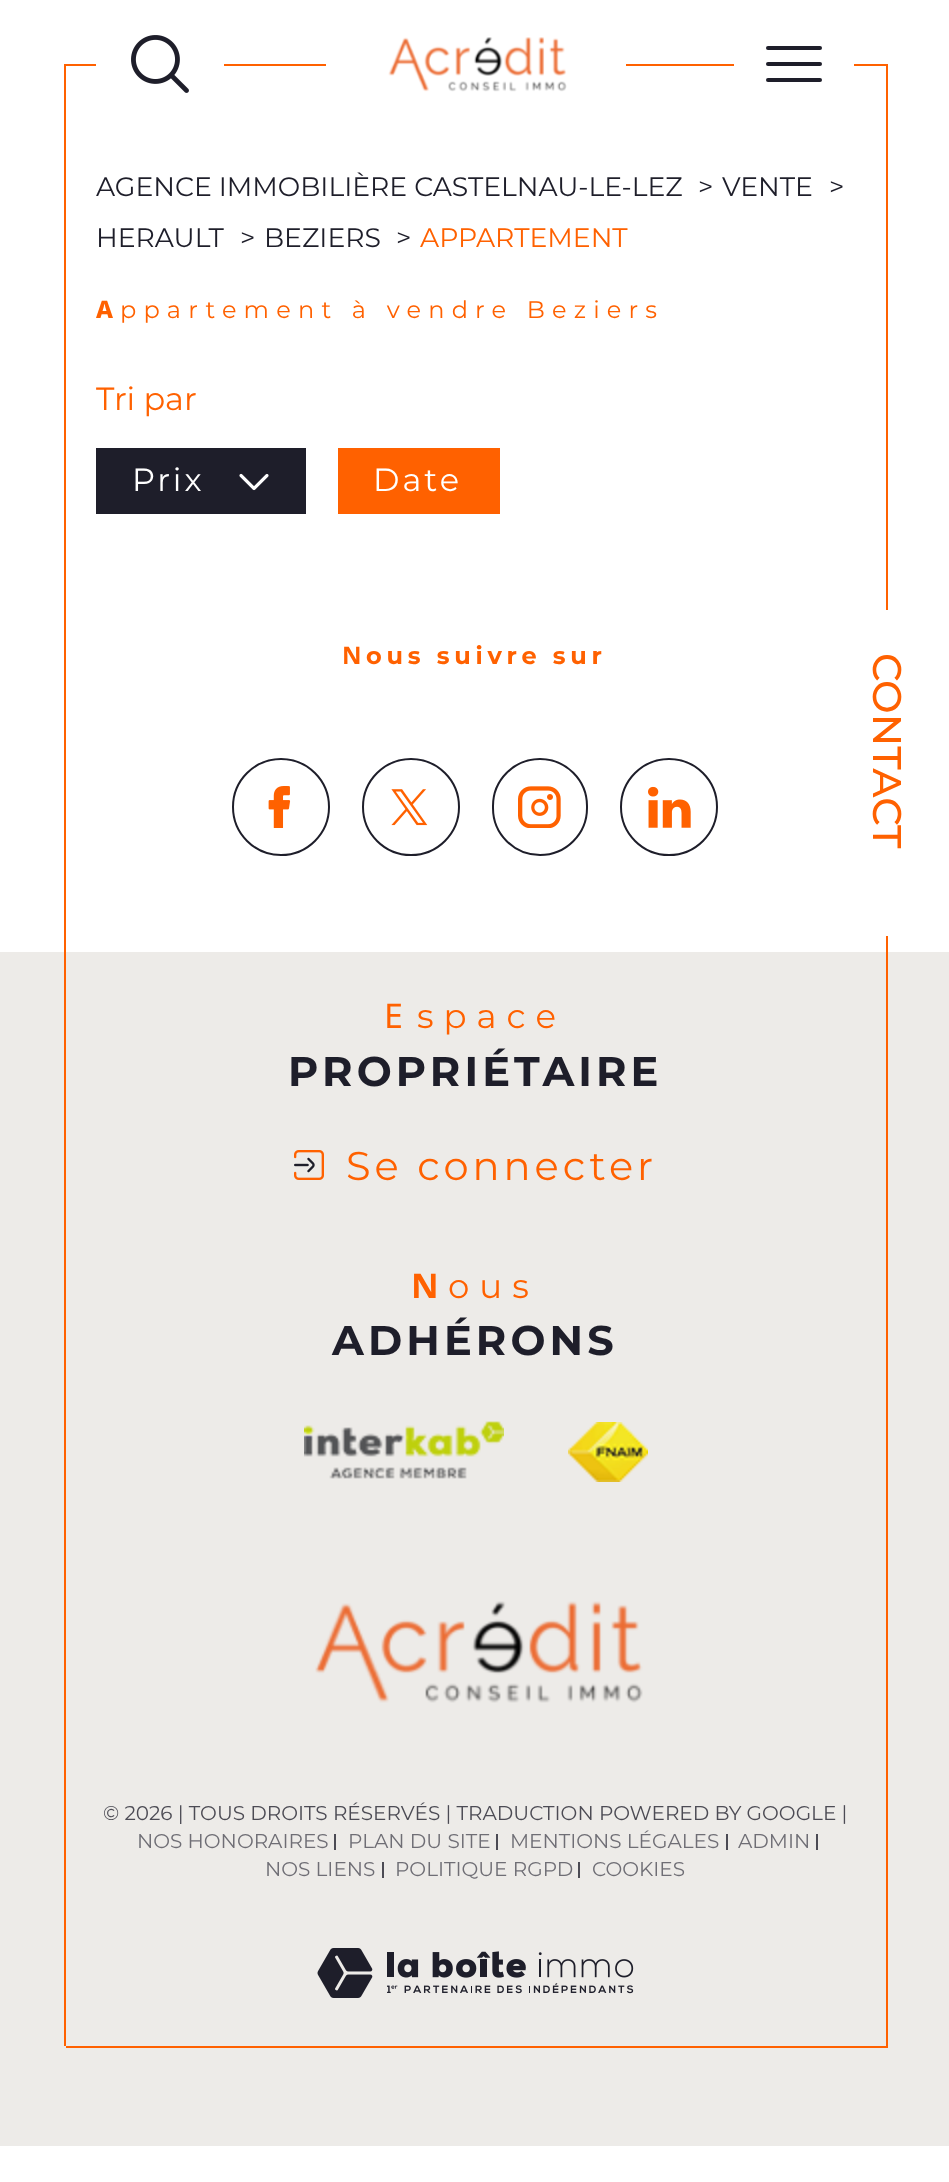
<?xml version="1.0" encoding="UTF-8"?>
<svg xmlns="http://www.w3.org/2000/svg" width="949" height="2182">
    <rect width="100%" height="100%" fill="#FFFFFF"/>
    <text x="96" y="196" font-family="Montserrat" font-size="26.7" font-weight="100" fill="#1E1E2A">AGENCE IMMOBILIÈRE CASTELNAU-LE-LEZ</text>
    <text x="698" y="196" font-family="Montserrat" font-size="26.7" font-weight="100" fill="#1E1E2A">&gt;</text>
    <text x="722" y="196" font-family="Montserrat" font-size="26.7" font-weight="100" fill="#1E1E2A">VENTE</text>
    <text x="829" y="196" font-family="Montserrat" font-size="26.7" font-weight="100" fill="#1E1E2A">&gt;</text>
    <text x="96" y="247" font-family="Montserrat" font-size="26.7" font-weight="100" fill="#1E1E2A">HERAULT</text>
    <text x="240" y="247" font-family="Montserrat" font-size="26.7" font-weight="100" fill="#1E1E2A">&gt;</text>
    <text x="264" y="247" font-family="Montserrat" font-size="26.7" font-weight="100" fill="#1E1E2A">BEZIERS</text>
    <text x="396" y="247" font-family="Montserrat" font-size="26.7" font-weight="100" fill="#1E1E2A">&gt;</text>
    <text x="420" y="247" font-family="Montserrat" font-size="26.7" font-weight="100" fill="#FF6100">APPARTEMENT</text>
    <text x="96" y="318" font-family="Noto Sans" font-size="24" font-weight="800" letter-spacing="7.2" fill="#FF6100">A</text>
    <text x="120" y="318" font-family="Montserrat" font-size="24" font-weight="100" letter-spacing="7.2" fill="#FF6100">ppartement à vendre Beziers</text>
    <text x="96" y="410" font-family="Montserrat" font-size="32" font-weight="100" fill="#FF6100">Tri par</text>
    <rect x="96" y="448" width="210" height="66" fill="#1E1E2A"/>
    <text x="132" y="491" font-family="Montserrat" font-size="32" font-weight="100" letter-spacing="3" fill="#FFFFFF">Prix</text>
    <image x="239" y="473" width="30" height="18" href="img_01.png"/>
    <rect x="338" y="448" width="162" height="66" fill="#FF6100"/>
    <text x="373" y="491" font-family="Montserrat" font-size="32" font-weight="100" letter-spacing="3" fill="#FFFFFF">Date</text>
    <text x="342" y="664" font-family="Noto Sans" font-size="24" font-weight="700" letter-spacing="4.75" fill="#FF6100">N</text>
    <text x="366" y="664" font-family="'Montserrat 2'" font-size="24" font-weight="100" letter-spacing="4.75" fill="#FF6100">ous suivre sur</text>
    <circle cx="281" cy="807" r="48" fill="none" stroke="#1E1E2A" stroke-width="2"/>
    <image x="268" y="786" width="23" height="42" href="img_02.png"/>
    <circle cx="411" cy="807" r="48" fill="none" stroke="#1E1E2A" stroke-width="2"/>
    <image x="391" y="789" width="37" height="37" href="img_03.png"/>
    <rect x="493" y="759" width="94" height="96" rx="47" fill="none" stroke="#1E1E2A" stroke-width="2"/>
    <image x="518" y="786" width="43" height="42" href="img_04.png"/>
    <circle cx="669" cy="807" r="48" fill="none" stroke="#1E1E2A" stroke-width="2"/>
    <image x="648" y="786" width="43" height="42" href="img_05.png"/>
    <rect x="0" y="952" width="949" height="1094" fill="#EDEBE8"/>
    <text x="384" y="1028" font-family="Noto Sans" font-size="34" letter-spacing="10" fill="#FF6100">E</text>
    <text x="417" y="1028" font-family="Montserrat" font-size="34" font-weight="100" letter-spacing="10" fill="#FF6100">space</text>
    <text x="288" y="1086" font-family="'Montserrat 2'" font-size="41.5" font-weight="100" letter-spacing="4.1" fill="#1E1E2A">PROPRIÉTAIRE</text>
    <image x="294" y="1150" width="30" height="30" href="img_06.png"/>
    <text x="346" y="1180" font-family="Montserrat" font-size="40" font-weight="100" letter-spacing="4" fill="#FF6100">Se connecter</text>
    <text x="411" y="1298" font-family="Noto Sans" font-size="34" font-weight="700" letter-spacing="10" fill="#FF6100">N</text>
    <text x="448" y="1298" font-family="Montserrat" font-size="34" font-weight="100" letter-spacing="10" fill="#FF6100">ous</text>
    <text x="332" y="1355" font-family="'Montserrat 2'" font-size="41.5" font-weight="100" letter-spacing="4.1" fill="#1E1E2A">ADHÉRONS</text>
    <image x="304" y="1421" width="200" height="58" href="img_07.png"/>
    <image x="568" y="1422" width="80" height="60" href="img_08.png"/>
    <image x="315" y="1601" width="328" height="102" href="img_09.png"/>
    <text x="103" y="1820" font-family="Montserrat" font-size="20" font-weight="100" fill="#4C4B54">© 2026 | TOUS DROITS RÉSERVÉS | TRADUCTION POWERED BY GOOGLE |</text>
    <rect x="334" y="1834" width="2" height="16" fill="#4C4B54"/>
    <text x="137" y="1848" font-family="Montserrat" font-size="20" font-weight="100" fill="#6F6E75">NOS HONORAIRES</text>
    <rect x="496" y="1834" width="2" height="16" fill="#4C4B54"/>
    <text x="348" y="1848" font-family="Montserrat" font-size="20" font-weight="100" fill="#6F6E75">PLAN DU SITE</text>
    <rect x="726" y="1834" width="2" height="16" fill="#4C4B54"/>
    <text x="510" y="1848" font-family="Montserrat" font-size="20" font-weight="100" fill="#6F6E75">MENTIONS LÉGALES</text>
    <rect x="816" y="1834" width="2" height="16" fill="#4C4B54"/>
    <text x="738" y="1848" font-family="Montserrat" font-size="20" font-weight="100" fill="#6F6E75">ADMIN</text>
    <rect x="382" y="1862" width="2" height="16" fill="#4C4B54"/>
    <text x="265" y="1876" font-family="Montserrat" font-size="20" font-weight="100" fill="#6F6E75">NOS LIENS</text>
    <rect x="578" y="1862" width="2" height="16" fill="#4C4B54"/>
    <text x="395" y="1876" font-family="Montserrat" font-size="20" font-weight="100" fill="#6F6E75">POLITIQUE RGPD</text>
    <text x="592" y="1876" font-family="Montserrat" font-size="20" font-weight="100" fill="#6F6E75">COOKIES</text>
    <image x="317" y="1948" width="317" height="50" href="img_10.png"/>
    <rect x="886" y="936" width="2" height="1114" fill="#FF6100"/>
    <rect x="0" y="2046" width="949" height="100" fill="#EDEBE8"/>
    <rect x="66" y="2046" width="822" height="2" fill="#FF6100"/>
    <rect x="64" y="64" width="822" height="2" fill="#FF6100"/>
    <rect x="96" y="64" width="128" height="2" fill="#FFFFFF"/>
    <image x="131" y="35" width="58" height="58" href="img_11.png"/>
    <rect x="326" y="64" width="300" height="2" fill="#FFFFFF"/>
    <image x="388" y="37" width="179" height="55" href="img_12.png"/>
    <rect x="734" y="64" width="120" height="2" fill="#FFFFFF"/>
    <rect x="766" y="62" width="56" height="4" rx="2" fill="#1E1E2A"/>
    <rect x="766" y="46" width="56" height="4" rx="2" fill="#1E1E2A"/>
    <rect x="766" y="78" width="56" height="4" rx="2" fill="#1E1E2A"/>
    <rect x="64" y="64" width="2" height="1982" fill="#FF6100"/>
    <rect x="886" y="64" width="2" height="546" fill="#FF6100"/>
    <text x="873" y="653" transform="rotate(90 873 653)" font-family="'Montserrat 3'" font-size="40" font-weight="100" fill="#FF6100">CONTACT</text>
</svg>
